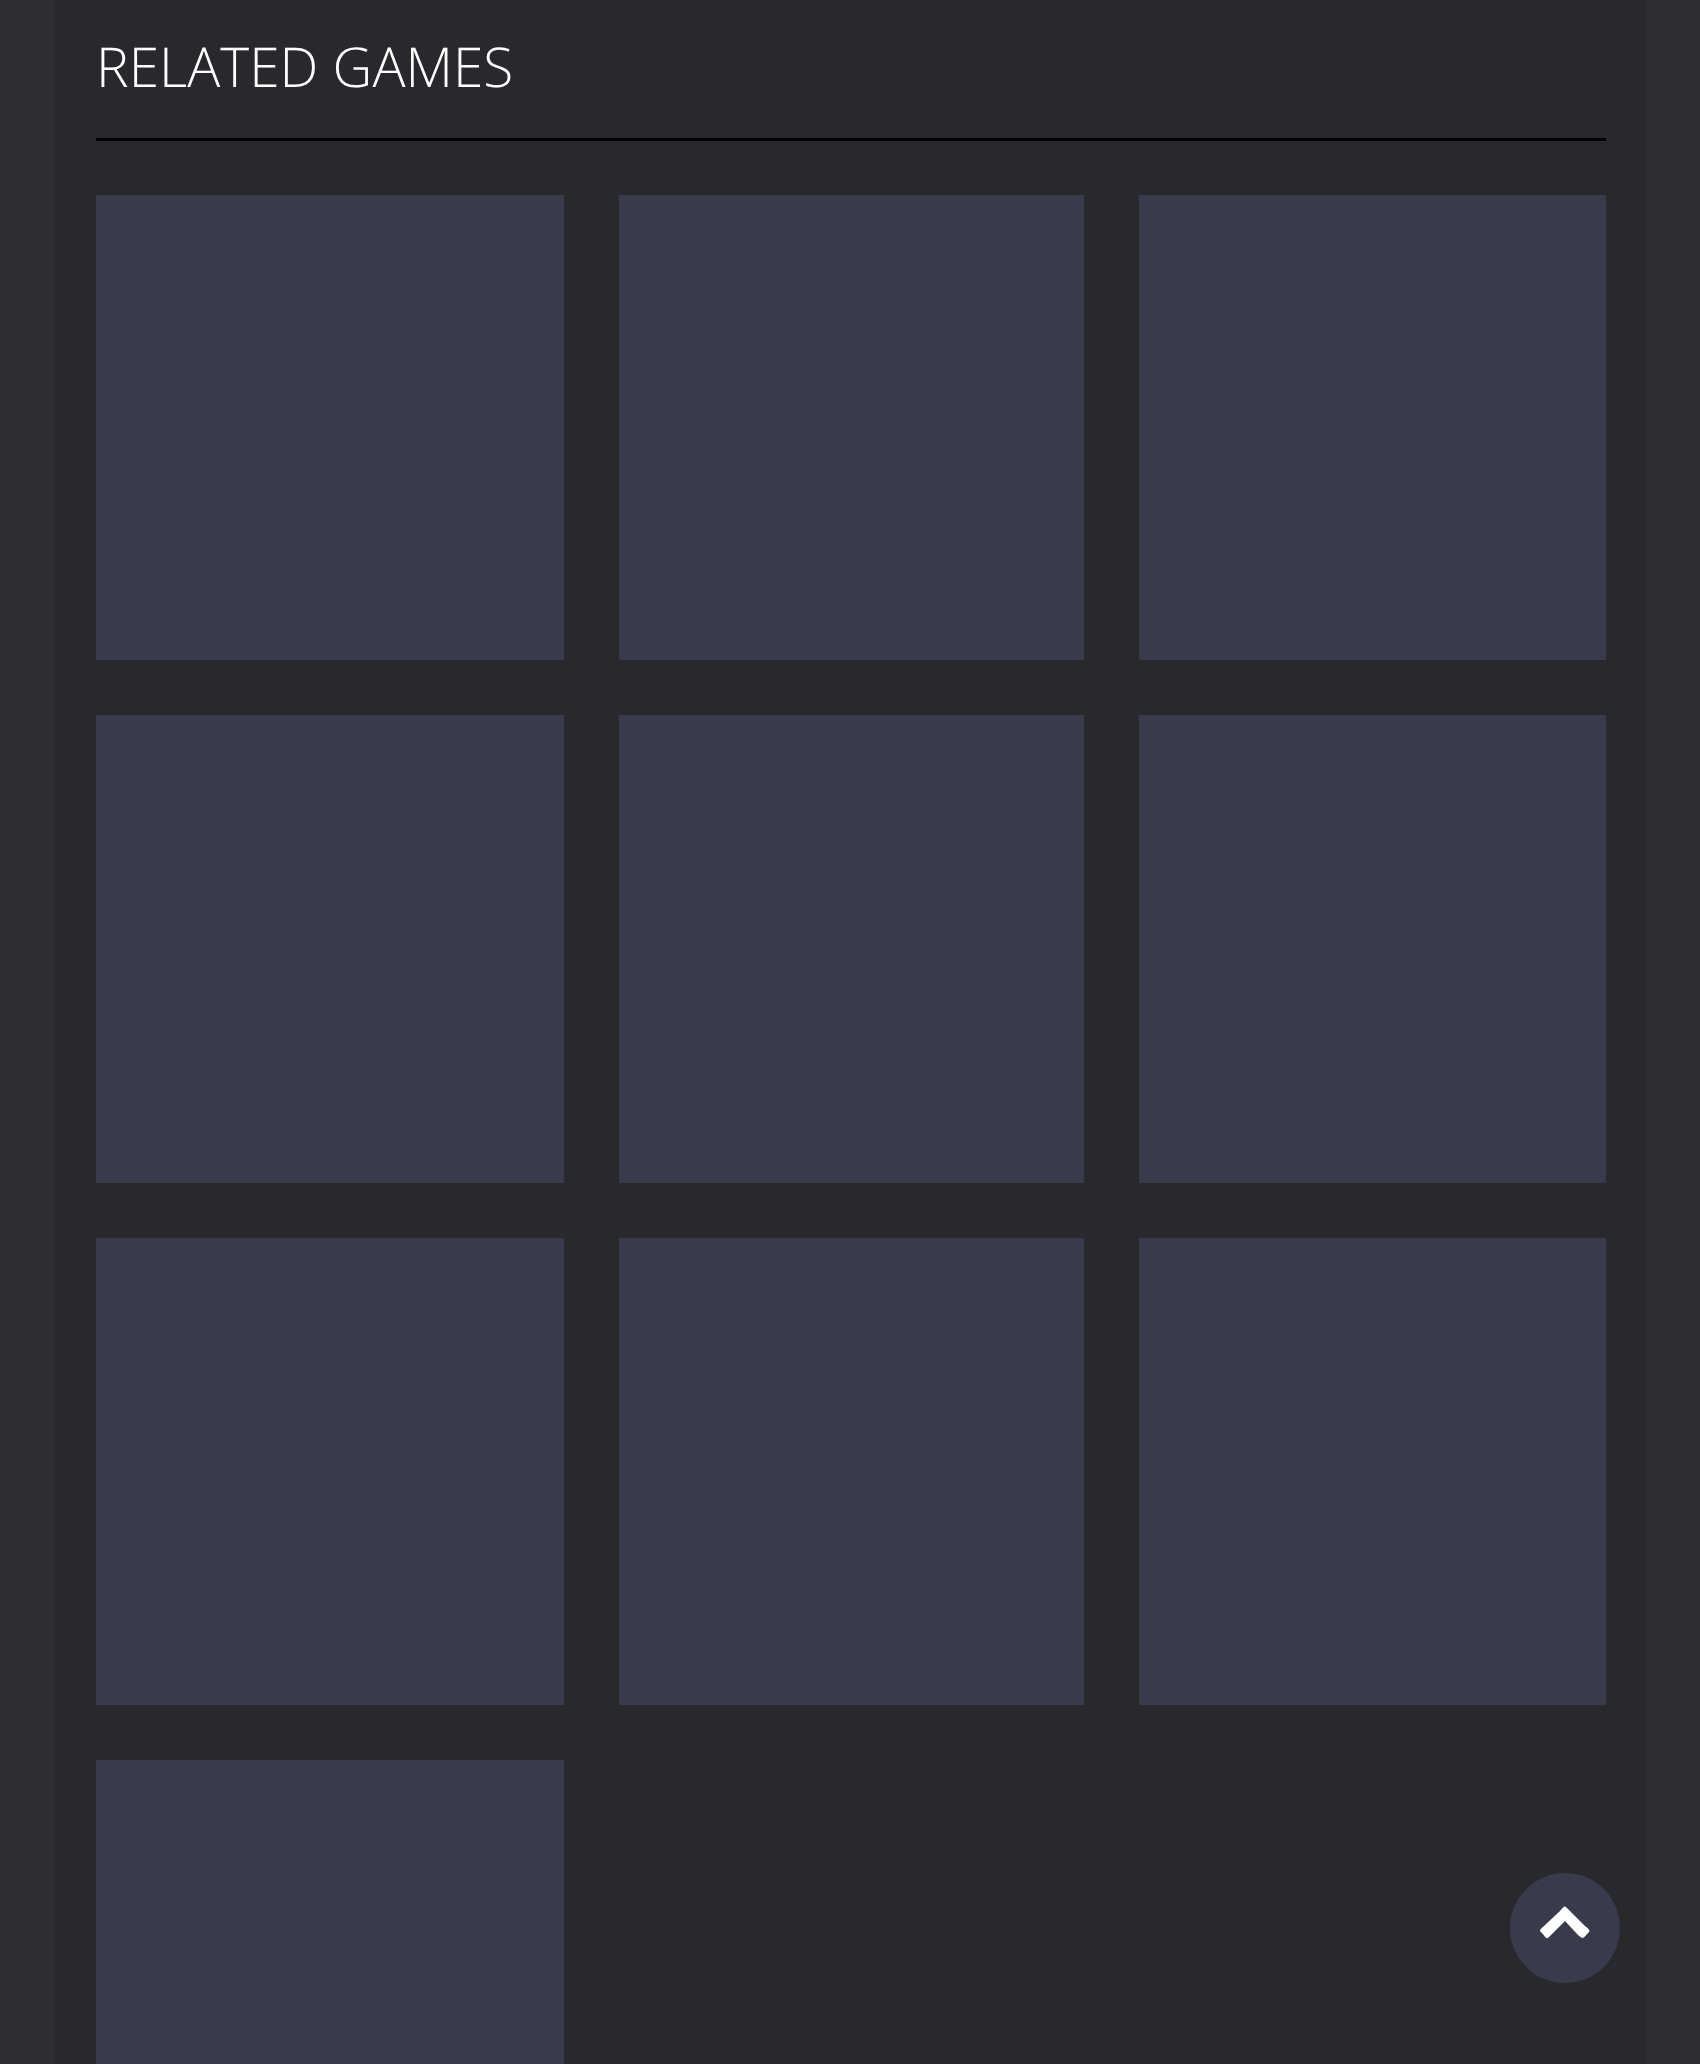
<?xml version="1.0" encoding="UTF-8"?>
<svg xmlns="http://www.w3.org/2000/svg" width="1700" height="2064">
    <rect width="100%" height="100%" fill="#2E2E32"/>
    <rect x="55" y="0" width="1592" height="2064" fill="#29292D"/>
    <rect x="96" y="138" width="1510" height="3" fill="#000000"/>
    <text x="96" y="87" font-family="Open Sans" font-size="55" font-weight="300" fill="#FFFFFF">RELATED GAMES</text>
    <rect x="96" y="195" width="468" height="465" fill="#393A4C"/>
    <rect x="619" y="195" width="465" height="465" fill="#393A4C"/>
    <rect x="1139" y="195" width="467" height="465" fill="#393A4C"/>
    <rect x="96" y="715" width="468" height="468" fill="#393A4C"/>
    <rect x="619" y="715" width="465" height="468" fill="#393A4C"/>
    <rect x="1139" y="715" width="467" height="468" fill="#393A4C"/>
    <rect x="96" y="1238" width="468" height="467" fill="#393A4C"/>
    <rect x="619" y="1238" width="465" height="467" fill="#393A4C"/>
    <rect x="1139" y="1238" width="467" height="467" fill="#393A4C"/>
    <rect x="96" y="1760" width="468" height="304" fill="#393A4C"/>
    <circle cx="1565" cy="1928" r="55" fill="#393A4C"/>
    <path d="M 1589 1932 C 1583 1938 1584 1940 1578 1935 L 1565 1921 L 1551 1935 C 1546 1940 1547 1939 1542 1933 C 1538 1930 1541 1929 1544 1926 L 1560 1911 C 1565 1905 1564 1905 1570 1911 L 1585 1926 C 1586 1927 1591 1930 1589 1932 Z" fill="#FFFFFF"/>
</svg>
